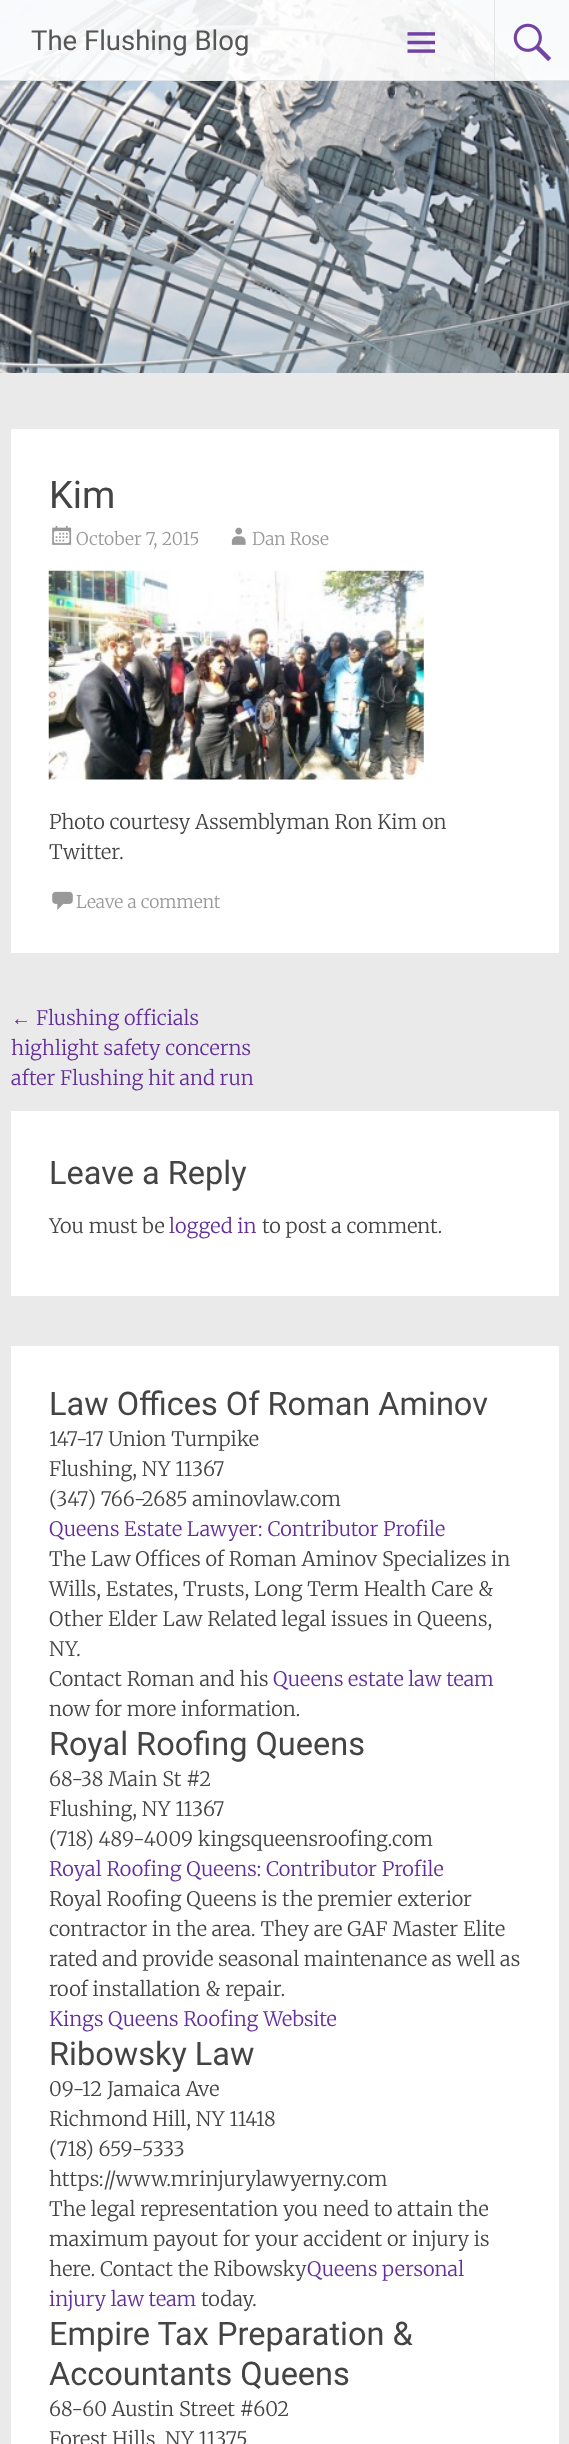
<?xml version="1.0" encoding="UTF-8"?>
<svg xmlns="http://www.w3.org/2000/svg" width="569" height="2444">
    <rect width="100%" height="100%" fill="#FFFFFF"/>
    <image x="0" y="0" width="569" height="373" href="img_01.png"/>
    <rect x="0" y="0" width="569" height="81" fill="#FFFFFF" fill-opacity="0.9"/>
    <rect x="0" y="80" width="569" height="1" fill="#E1E4E6" fill-opacity="0.9"/>
    <text x="31" y="50" font-family="Roboto" font-size="27.5" fill="#565656">The Flushing Blog</text>
    <image x="407" y="32" width="28" height="21" href="img_02.png"/>
    <rect x="494" y="0" width="1" height="80" fill="#E1E4E6" fill-opacity="0.9"/>
    <image x="513" y="23" width="39" height="39" href="img_03.png"/>
    <rect x="0" y="373" width="569" height="2071" fill="#EAEAEA"/>
    <rect x="11" y="429" width="548" height="524" fill="#FFFFFF"/>
    <text x="49" y="508" font-family="Roboto" font-size="38" fill="#444444">Kim</text>
    <image x="52" y="525" width="20" height="20" href="img_04.png"/>
    <text x="76" y="545" font-family="Merriweather" font-size="17.5" font-weight="300" fill="#999999">October 7, 2015</text>
    <image x="231" y="527" width="15" height="18" href="img_05.png"/>
    <text x="252" y="545" font-family="Merriweather" font-size="17.5" font-weight="300" fill="#999999">Dan Rose</text>
    <image x="48" y="570" width="376" height="210" href="img_06.png"/>
    <text font-family="Merriweather" font-size="20" font-weight="300" fill="#444444">
        <tspan x="49" y="829">Photo courtesy Assemblyman Ron Kim on</tspan>
        <tspan x="49" y="859">Twitter.</tspan>
    </text>
    <image x="52" y="891" width="21" height="19" href="img_07.png"/>
    <text x="76" y="908" font-family="Merriweather" font-size="17.5" font-weight="300" fill="#999999">Leave a comment</text>
    <text x="11" y="1025" font-family="Liberation Serif" font-size="20" fill="#632E9B">←</text>
    <text x="36" y="1025" font-family="Merriweather" font-size="20" font-weight="300" fill="#632E9B">Flushing officials</text>
    <text font-family="Merriweather" font-size="20" font-weight="300" fill="#632E9B">
        <tspan x="11" y="1055">highlight safety concerns</tspan>
        <tspan x="11" y="1085">after Flushing hit and run</tspan>
    </text>
    <rect x="11" y="1111" width="548" height="185" fill="#FFFFFF"/>
    <text x="49" y="1184" font-family="Roboto" font-size="32.5" fill="#444444">Leave a Reply</text>
    <text x="49" y="1233" font-family="Merriweather" font-size="20" font-weight="300" fill="#444444">You must be</text>
    <text x="169" y="1233" font-family="Merriweather" font-size="20" font-weight="300" fill="#632E9B">logged in</text>
    <text x="262" y="1233" font-family="Merriweather" font-size="20" font-weight="300" fill="#444444">to post a comment.</text>
    <rect x="11" y="1346" width="548" height="1098" fill="#FFFFFF"/>
    <text x="49" y="1415" font-family="Roboto" font-size="32.5" fill="#444444">Law Offices Of Roman Aminov</text>
    <text font-family="Merriweather" font-size="20" font-weight="300" fill="#444444">
        <tspan x="49" y="1446">147-17 Union Turnpike</tspan>
        <tspan x="49" y="1476">Flushing, NY 11367</tspan>
        <tspan x="49" y="1506">(347) 766-2685 aminovlaw.com</tspan>
    </text>
    <text x="49" y="1536" font-family="Merriweather" font-size="20" font-weight="300" fill="#632E9B">Queens Estate Lawyer: Contributor Profile</text>
    <text font-family="Merriweather" font-size="20" font-weight="300" fill="#444444">
        <tspan x="49" y="1566">The Law Offices of Roman Aminov Specializes in</tspan>
        <tspan x="49" y="1596">Wills, Estates, Trusts, Long Term Health Care &amp;</tspan>
        <tspan x="49" y="1626">Other Elder Law Related legal issues in Queens,</tspan>
        <tspan x="49" y="1656">NY.</tspan>
        <tspan x="49" y="1686">Contact Roman and his</tspan>
    </text>
    <text x="273" y="1686" font-family="Merriweather" font-size="20" font-weight="300" fill="#632E9B">Queens estate law team</text>
    <text x="49" y="1716" font-family="Merriweather" font-size="20" font-weight="300" fill="#444444">now for more information.</text>
    <text x="49" y="1755" font-family="Roboto" font-size="32.5" fill="#444444">Royal Roofing Queens</text>
    <text font-family="Merriweather" font-size="20" font-weight="300" fill="#444444">
        <tspan x="49" y="1786">68-38 Main St #2</tspan>
        <tspan x="49" y="1816">Flushing, NY 11367</tspan>
        <tspan x="49" y="1846">(718) 489-4009 kingsqueensroofing.com</tspan>
    </text>
    <text x="49" y="1876" font-family="Merriweather" font-size="20" font-weight="300" fill="#632E9B">Royal Roofing Queens: Contributor Profile</text>
    <text font-family="Merriweather" font-size="20" font-weight="300" fill="#444444">
        <tspan x="49" y="1906">Royal Roofing Queens is the premier exterior</tspan>
        <tspan x="49" y="1936">contractor in the area. They are GAF Master Elite</tspan>
        <tspan x="49" y="1966">rated and provide seasonal maintenance as well as</tspan>
        <tspan x="49" y="1996">roof installation &amp; repair.</tspan>
    </text>
    <text x="49" y="2026" font-family="Merriweather" font-size="20" font-weight="300" fill="#632E9B">Kings Queens Roofing Website</text>
    <text x="49" y="2065" font-family="Roboto" font-size="32.5" fill="#444444">Ribowsky Law</text>
    <text font-family="Merriweather" font-size="20" font-weight="300" fill="#444444">
        <tspan x="49" y="2096">09-12 Jamaica Ave</tspan>
        <tspan x="49" y="2126">Richmond Hill, NY 11418</tspan>
        <tspan x="49" y="2156">(718) 659-5333</tspan>
        <tspan x="49" y="2186">https://www.mrinjurylawyerny.com</tspan>
        <tspan x="49" y="2216">The legal representation you need to attain the</tspan>
        <tspan x="49" y="2246">maximum payout for your accident or injury is</tspan>
        <tspan x="49" y="2276">here. Contact the Ribowsky</tspan>
    </text>
    <text x="307" y="2276" font-family="Merriweather" font-size="20" font-weight="300" fill="#632E9B">Queens personal</text>
    <text x="49" y="2306" font-family="Merriweather" font-size="20" font-weight="300" fill="#632E9B">injury law team</text>
    <text x="201" y="2306" font-family="Merriweather" font-size="20" font-weight="300" fill="#444444">today.</text>
    <text font-family="Roboto" font-size="32.5" fill="#444444">
        <tspan x="49" y="2345">Empire Tax Preparation &amp;</tspan>
        <tspan x="49" y="2385">Accountants Queens</tspan>
    </text>
    <text font-family="Merriweather" font-size="20" font-weight="300" fill="#444444">
        <tspan x="49" y="2416">68-60 Austin Street #602</tspan>
        <tspan x="49" y="2446">Forest Hills, NY 11375</tspan>
    </text>
</svg>
